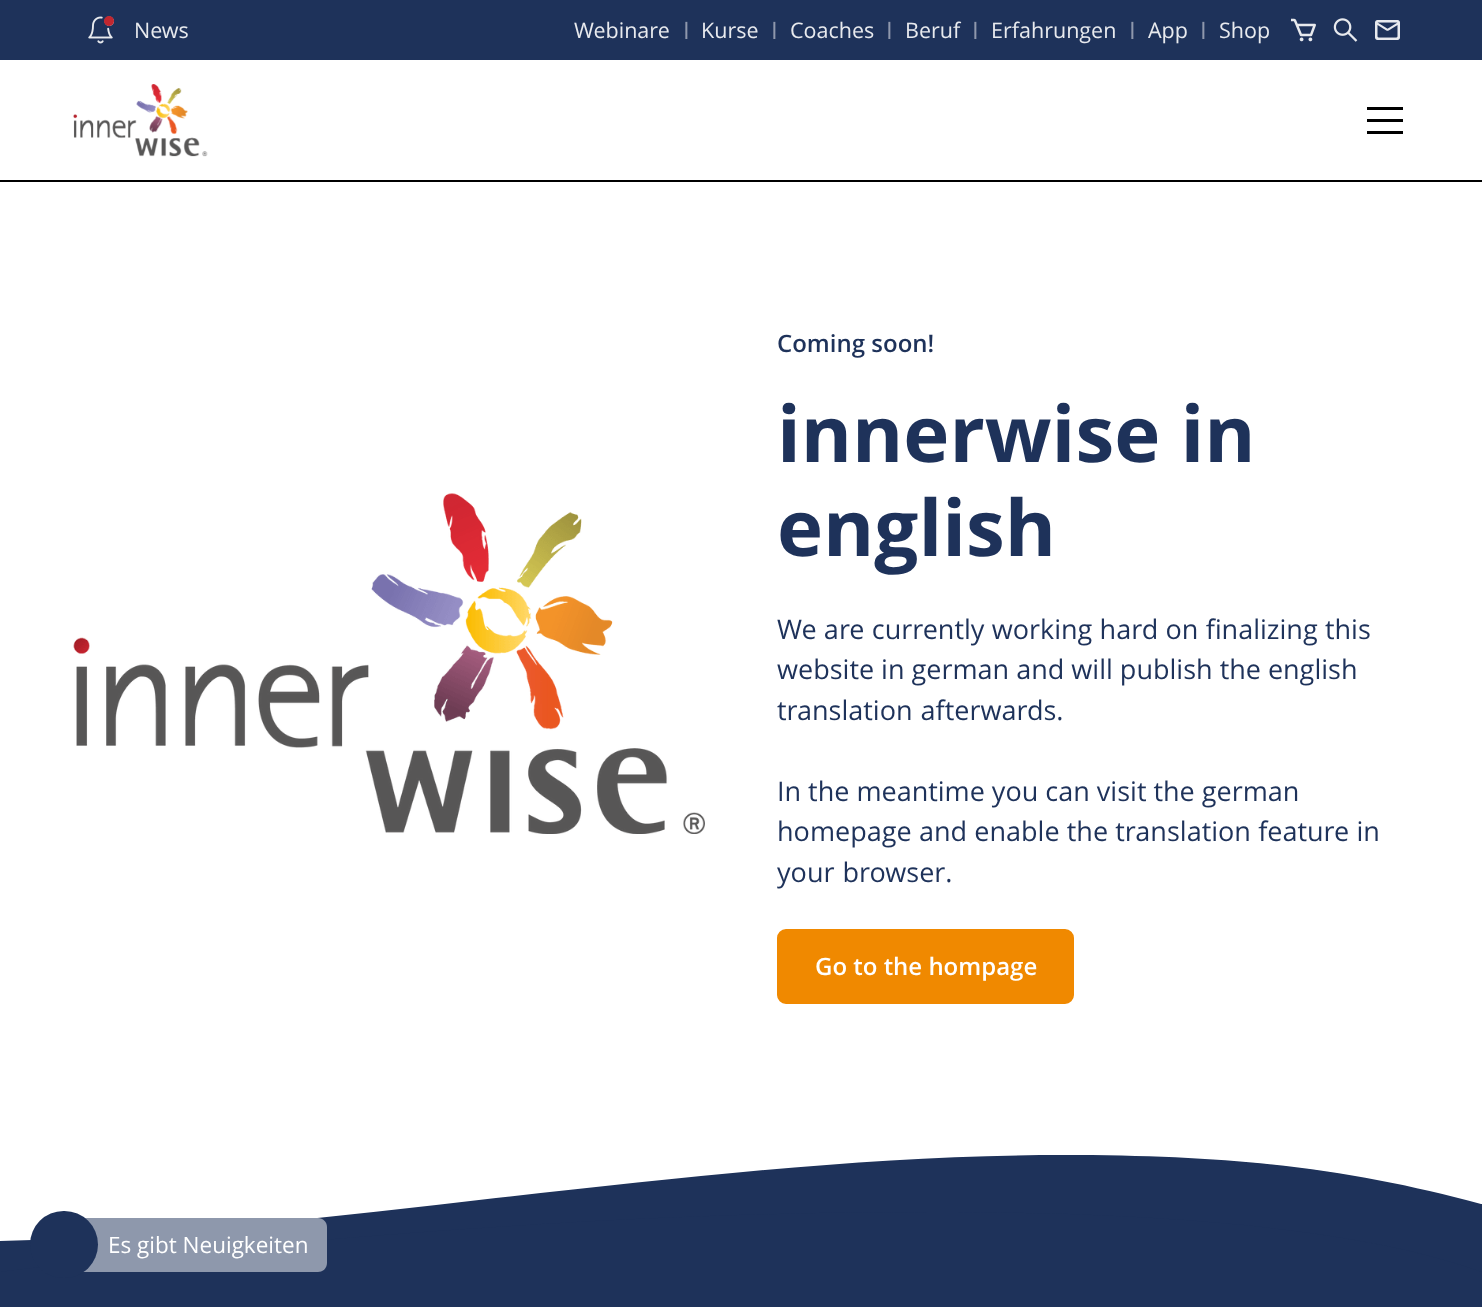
<?xml version="1.0" encoding="UTF-8"?>
<svg xmlns="http://www.w3.org/2000/svg" width="1482" height="1307">
    <defs>
        <clipPath id="clip1"><rect x="0" y="1146" width="1482" height="135"/></clipPath>
    </defs>
    <rect width="100%" height="100%" fill="#FFFFFF"/>
    <rect x="0" y="0" width="1482" height="60" fill="#1E325A"/>
    <image x="88" y="16" width="26" height="28" href="img_01.png"/>
    <text x="134" y="38" font-family="Open Sans" font-size="21.5" fill="#E8EAEE">News</text>
    <text x="574" y="38" font-family="Open Sans" font-size="21.5" fill="#E8EAEE">Webinare</text>
    <text x="683" y="39" font-family="Open Sans" font-size="24" fill="#8E98AC">I</text>
    <text x="701" y="38" font-family="Open Sans" font-size="21.5" fill="#E8EAEE">Kurse</text>
    <text x="771" y="39" font-family="Open Sans" font-size="24" fill="#8E98AC">I</text>
    <text x="790" y="38" font-family="Open Sans" font-size="21.5" fill="#E8EAEE">Coaches</text>
    <text x="886" y="39" font-family="Open Sans" font-size="24" fill="#8E98AC">I</text>
    <text x="905" y="38" font-family="Open Sans" font-size="21.5" fill="#E8EAEE">Beruf</text>
    <text x="972" y="39" font-family="Open Sans" font-size="24" fill="#8E98AC">I</text>
    <text x="991" y="38" font-family="Open Sans" font-size="21.5" fill="#E8EAEE">Erfahrungen</text>
    <text x="1129" y="39" font-family="Open Sans" font-size="24" fill="#8E98AC">I</text>
    <text x="1148" y="38" font-family="Open Sans" font-size="21.5" fill="#E8EAEE">App</text>
    <text x="1200" y="39" font-family="Open Sans" font-size="24" fill="#8E98AC">I</text>
    <text x="1219" y="38" font-family="Open Sans" font-size="21.5" fill="#E8EAEE">Shop</text>
    <image x="1291" y="18" width="25" height="24" href="img_02.png"/>
    <image x="1333" y="18" width="25" height="24" href="img_03.png"/>
    <image x="1375" y="20" width="25" height="20" href="img_04.png"/>
    <rect x="0" y="180" width="1482" height="2" fill="#000000"/>
    <image x="73" y="84" width="135" height="73" href="img_05.png"/>
    <rect x="1367" y="107" width="36" height="3" fill="#000000"/>
    <rect x="1367" y="119" width="36" height="3" fill="#000000"/>
    <rect x="1367" y="131" width="36" height="3" fill="#000000"/>
    <image x="73" y="493" width="632" height="341" href="img_06.png"/>
    <text x="777" y="352" font-family="Open Sans" font-size="24" font-weight="600" fill="#1E325A">Coming soon!</text>
    <text font-family="Open Sans" font-size="78" font-weight="700" fill="#1E325A">
        <tspan x="777" y="462">innerwise in</tspan>
        <tspan x="777" y="556">english</tspan>
    </text>
    <text font-family="Open Sans" font-size="27" fill="#1E325A">
        <tspan x="777" y="639" word-spacing="0.25">We are currently working hard on finalizing this</tspan>
        <tspan x="777" y="679">website in german and will publish the english</tspan>
        <tspan x="777" y="720" word-spacing="1">translation afterwards.</tspan>
    </text>
    <text font-family="Open Sans" font-size="27" fill="#1E325A">
        <tspan x="777" y="801">In the meantime you can visit the german</tspan>
        <tspan x="777" y="841" word-spacing="0.25">homepage and enable the translation feature in</tspan>
        <tspan x="777" y="882" word-spacing="1">your browser.</tspan>
    </text>
    <rect x="778" y="930" width="295" height="73" rx="8" fill="#F08900" stroke="#F08900" stroke-width="2"/>
    <text x="815" y="975" font-family="Open Sans" font-size="24" font-weight="600" fill="#FFFFFF">Go to the hompage</text>
    <path d="M 0 1239 V 1274 C 0 1274 1112 1139 1482 1274 V 1202 C 1026 1081 513 1221 0 1239 Z" fill="#1E325A"/>
    <g clip-path="url(#clip1)">
        <path d="M 0 1145 V 1241 C 166 1236 334 1217 496 1198 C 693 1176 879 1155 1063 1155 C 1247 1155 1358 1171 1481 1204 H 1482 V 1145 Z" fill="#FFFFFF"/>
    </g>
    <path d="M 1482 1282 V 1272 C 1372 1232 1188 1212 933 1212 C 679 1212 465 1228 302 1242 C 129 1256 6 1271 0 1272 V 1282 Z" fill="#1E325A"/>
    <rect x="0" y="1282" width="1482" height="25" fill="#1E325A"/>
    <path d="M 66 1218 H 318 C 323 1218 327 1222 327 1227 V 1263 C 327 1268 323 1272 318 1272 H 66 Z" fill="#8E98AC"/>
    <rect x="30" y="1211" width="68" height="67" rx="33.5" fill="#1E325A"/>
    <text x="108" y="1253" font-family="'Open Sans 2'" font-size="22.5" fill="#FFFFFF">Es gibt Neuigkeiten</text>
</svg>
